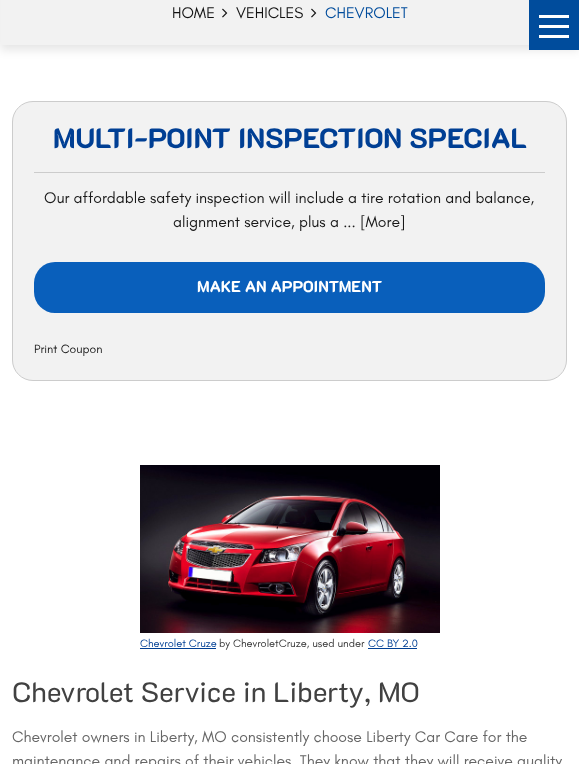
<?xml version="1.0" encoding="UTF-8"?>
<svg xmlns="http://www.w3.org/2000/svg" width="579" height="764">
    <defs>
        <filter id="blur1" x="-50%" y="-200%" width="200%" height="500%"><feGaussianBlur stdDeviation="5"/></filter>
    </defs>
    <rect width="100%" height="100%" fill="#FFFFFF"/>
    <rect x="0" y="-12" width="579" height="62" fill="#000000" fill-opacity="0.1" filter="url(#blur1)"/>
    <rect x="529" y="0" width="50" height="50" fill="#004C9C"/>
    <rect x="539" y="25" width="30" height="3" fill="#FFFFFF"/>
    <rect x="539" y="15" width="30" height="3" fill="#FFFFFF"/>
    <rect x="539" y="35" width="30" height="3" fill="#FFFFFF"/>
    <rect x="1" y="0" width="528" height="45" fill="#F2F2F2"/>
    <text x="172" y="18" font-family="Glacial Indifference" font-size="15.75" fill="#121212">HOME</text>
    <image x="222" y="8" width="6" height="10" href="img_01.png"/>
    <text x="236" y="18" font-family="Glacial Indifference" font-size="15.75" fill="#121212">VEHICLES</text>
    <image x="311" y="8" width="6" height="10" href="img_01.png"/>
    <text x="325" y="18" font-family="Glacial Indifference" font-size="15.75" fill="#004C9C">CHEVROLET</text>
    <rect x="12.5" y="101.5" width="554" height="279" rx="20.5" fill="#F2F2F2" stroke="#CCCCCC"/>
    <rect x="34" y="172" width="511" height="1" fill="#CCCCCC"/>
    <text x="53" y="148" font-family="'K2D'" font-size="28" font-weight="800" fill="#003F94">MULTI-POINT INSPECTION SPECIAL</text>
    <text x="44" y="203" font-family="Glacial Indifference" font-size="15.75" fill="#191919">Our affordable safety inspection will include a tire rotation and balance,</text>
    <text x="173" y="227" font-family="Glacial Indifference" font-size="15.75" fill="#191919">alignment service, plus a ... [More]</text>
    <rect x="34" y="262" width="511" height="51" rx="21" fill="#095FBB"/>
    <text x="197" y="292" font-family="'K2D'" font-size="15.75" font-weight="800" fill="#FFFFFF">MAKE AN APPOINTMENT</text>
    <text x="34" y="353" font-family="Glacial Indifference" font-size="12.25" fill="#191919">Print Coupon</text>
    <image x="140" y="465" width="300" height="168" href="img_02.png"/>
    <text x="140" y="647" font-family="Glacial Indifference" font-size="11" fill="#003F94">Chevrolet Cruze</text>
    <rect x="140" y="648" width="76" height="1" fill="#003F94"/>
    <text x="219" y="647" font-family="Glacial Indifference" font-size="11" fill="#333333">by ChevroletCruze, used under</text>
    <text x="368" y="647" font-family="Glacial Indifference" font-size="11" fill="#003F94">CC BY 2.0</text>
    <rect x="368" y="648" width="49" height="1" fill="#003F94"/>
    <text x="12" y="702" font-family="'K2D'" font-size="28" fill="#414141">Chevrolet Service in Liberty, MO</text>
    <text font-family="Glacial Indifference" font-size="15.75" fill="#666666">
        <tspan x="12" y="742">Chevrolet owners in Liberty, MO consistently choose Liberty Car Care for the</tspan>
        <tspan x="12" y="766">maintenance and repairs of their vehicles. They know that they will receive quality</tspan>
    </text>
</svg>
